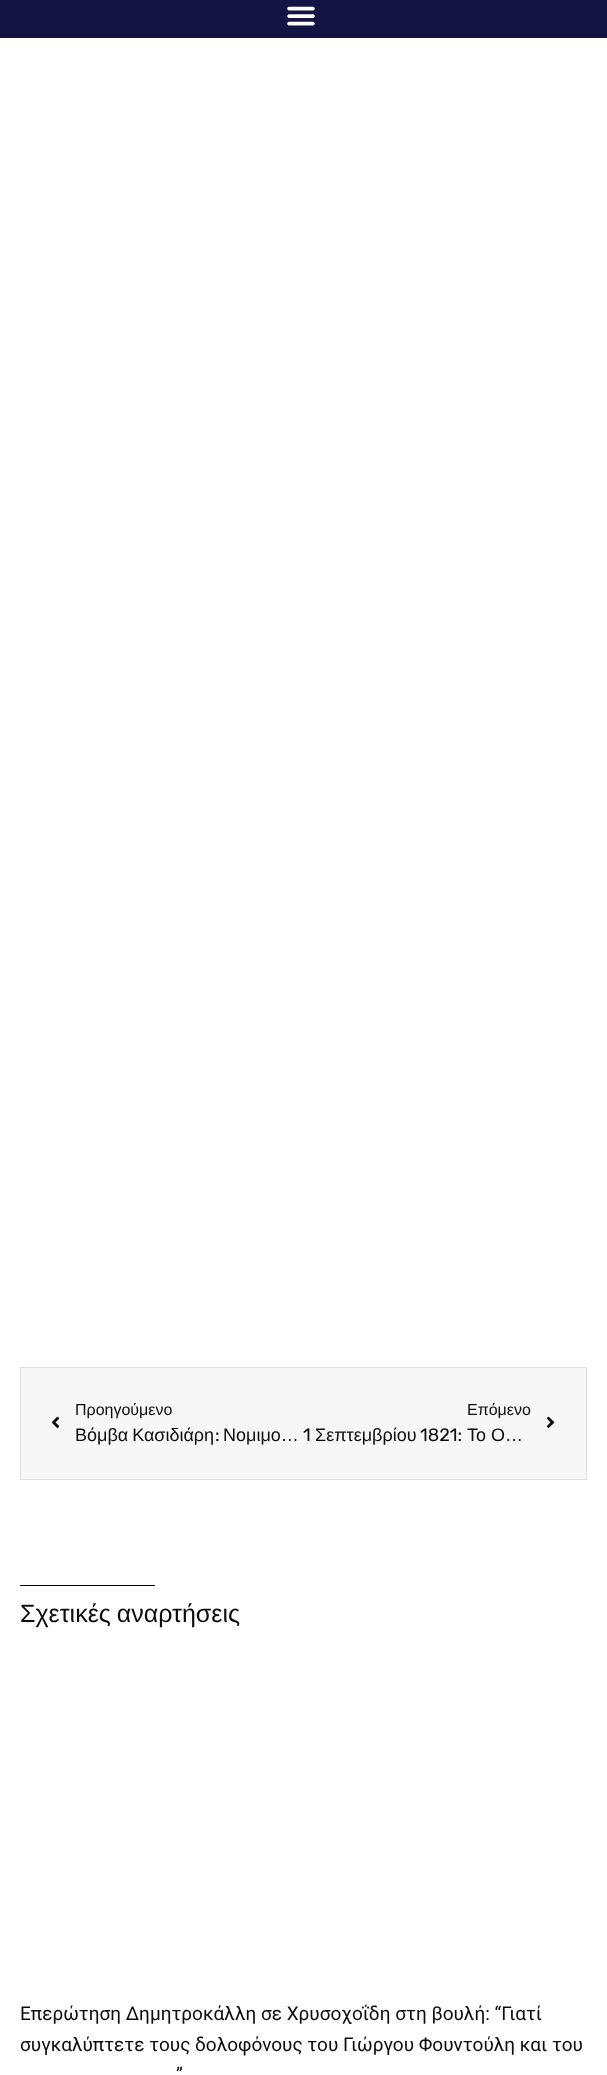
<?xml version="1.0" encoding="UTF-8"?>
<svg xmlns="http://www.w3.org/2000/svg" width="607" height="2075">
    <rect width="100%" height="100%" fill="#FFFFFF"/>
    <rect x="0" y="0" width="607" height="38" fill="#141444"/>
    <image x="287" y="6" width="28" height="20" href="img_01.png"/>
    <rect x="20.5" y="1367.5" width="566" height="112" fill="#F7F7F7" stroke="#DFDFDF"/>
    <image x="51" y="1416" width="9" height="12" href="img_02.png"/>
    <text x="75" y="1415" font-family="Liberation Sans" font-size="16" fill="#0C0C0C">Προηγούμενο</text>
    <text x="75" y="1441" word-spacing="-1" font-family="Liberation Sans" font-size="18" fill="#0C0C0C">Βόμβα Κασιδιάρη</text>
    <text x="215" y="1441" font-family="Rubik" font-size="18" fill="#0C0C0C">:</text>
    <text x="223" y="1441" word-spacing="-1" font-family="Liberation Sans" font-size="18" fill="#0C0C0C">Νομιμο…</text>
    <text x="467" y="1415" font-family="Liberation Sans" font-size="16" fill="#0C0C0C">Επόμενο</text>
    <text x="303" y="1441" font-family="Rubik" font-size="18" fill="#0C0C0C">1</text>
    <text x="315" y="1441" font-family="Liberation Sans" font-size="18" fill="#0C0C0C">Σεπτεμβρίου</text>
    <text x="420" y="1441" font-family="Rubik" font-size="18" fill="#0C0C0C">1821:</text>
    <text x="467" y="1441" font-family="Liberation Sans" font-size="18" fill="#0C0C0C">Το Ο…</text>
    <image x="546" y="1416" width="9" height="12" href="img_03.png"/>
    <rect x="20" y="1585" width="135" height="1" fill="#000000"/>
    <text x="20" y="1622" word-spacing="-1" font-family="Liberation Sans" font-size="25" fill="#0C0C0C">Σχετικές αναρτήσεις</text>
    <text font-family="Roboto" font-size="19" fill="#0C0C0C">
        <tspan x="20" y="2020">Επερώτηση Δημητροκάλλη σε Χρυσοχοΐδη στη βουλή: “Γιατί</tspan>
        <tspan x="20" y="2051">συγκαλύπτετε τους δολοφόνους του Γιώργου Φουντούλη και του</tspan>
    </text>
    <text x="176" y="2081" font-family="Roboto" font-size="19" fill="#0C0C0C">”</text>
</svg>
